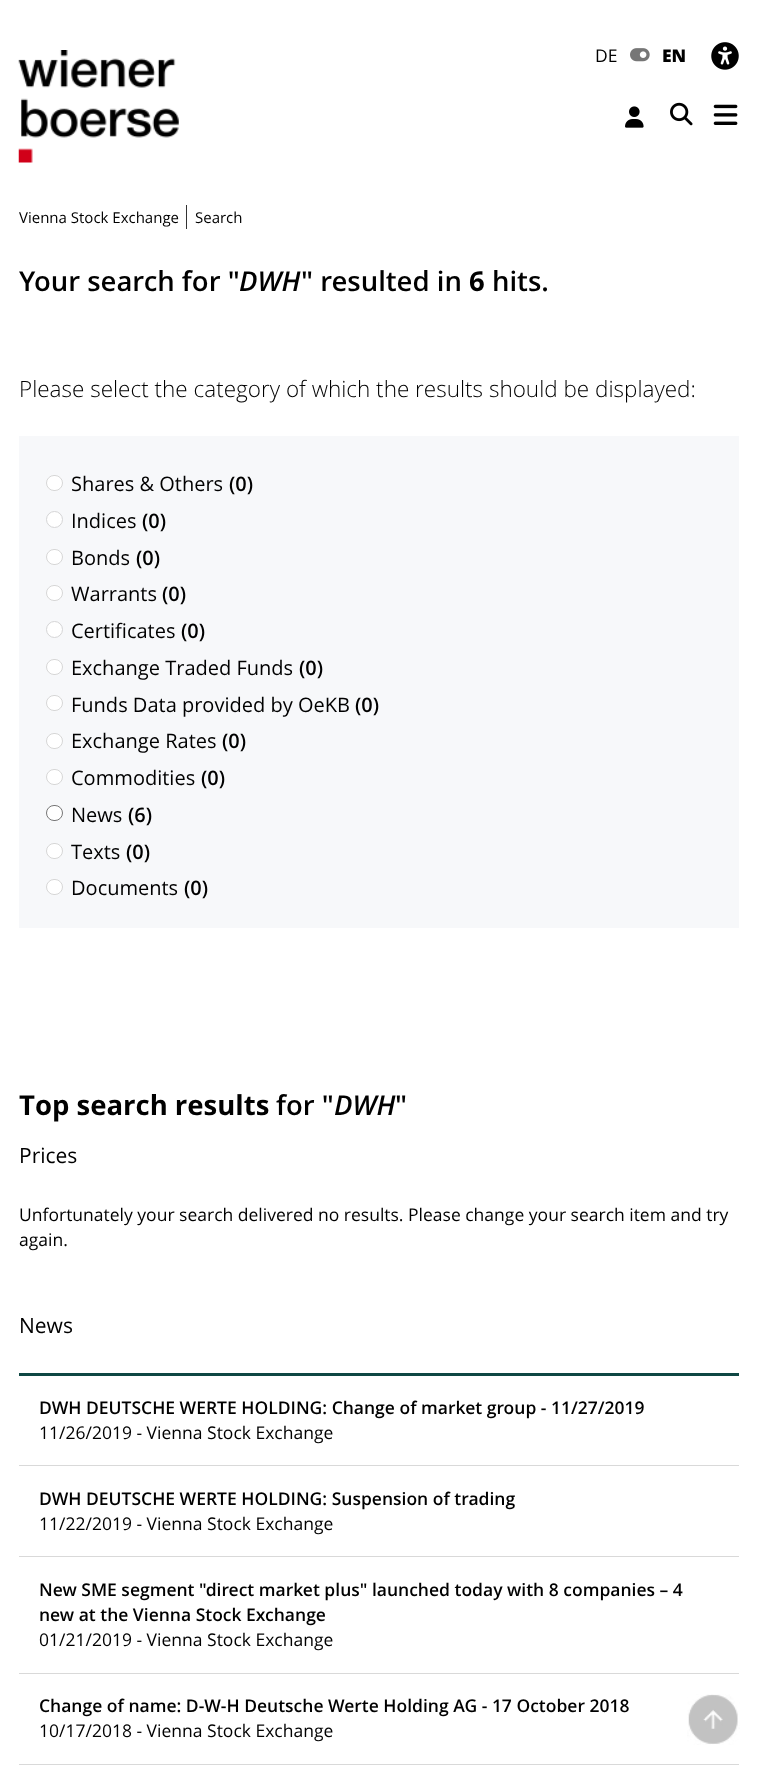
<?xml version="1.0" encoding="UTF-8"?>
<svg xmlns="http://www.w3.org/2000/svg" width="757" height="1765">
    <rect width="100%" height="100%" fill="#FFFFFF"/>
    <text x="595" y="62" font-family="Open Sans" font-size="17.5" fill="#000000">DE</text>
    <image x="630" y="48" width="20" height="14" href="img_01.png"/>
    <text x="662" y="62" font-family="Open Sans" font-size="17.5" font-weight="800" fill="#000000">EN</text>
    <image x="711" y="42" width="28" height="28" href="img_02.png"/>
    <image x="18" y="50" width="161" height="113" href="img_03.png"/>
    <image x="625" y="106" width="19" height="22" href="img_04.png"/>
    <image x="670" y="102" width="23" height="24" href="img_05.png"/>
    <image x="713" y="104" width="25" height="21" href="img_06.png"/>
    <rect x="186" y="205" width="1" height="24" fill="#333333"/>
    <text x="19" y="223" font-family="Open Sans" font-size="15" fill="#000000">Vienna Stock Exchange</text>
    <text x="195" y="223" font-family="Open Sans" font-size="15" fill="#000000">Search</text>
    <text x="19" y="291" font-family="Open Sans" font-size="27.5" font-weight="600" fill="#000000">Your search for "</text>
    <text x="239" y="291" font-family="Open Sans" font-size="27.5" font-weight="600" font-style="italic" fill="#000000">DWH</text>
    <text x="301" y="291" font-family="Open Sans" font-size="27.5" font-weight="600" fill="#000000">" resulted in</text>
    <text x="469" y="291" font-family="Open Sans" font-size="27.5" font-weight="700" fill="#000000">6</text>
    <text x="492" y="291" font-family="Open Sans" font-size="27.5" font-weight="600" fill="#000000">hits.</text>
    <text x="19" y="397" font-family="Open Sans" font-size="22.5" font-weight="300" fill="#000000">Please select the category of which the results should be displayed:</text>
    <rect x="19" y="436" width="720" height="492" fill="#F7F8FA"/>
    <rect x="46" y="475" width="17" height="16" rx="8" fill="#FFFFFF"/>
    <rect x="46.5" y="475.5" width="16" height="15" rx="7.5" fill="none" stroke="#767676" stroke-opacity="0.3"/>
    <text x="71" y="491" font-family="Open Sans" font-size="20" fill="#000000">Shares &amp; Others</text>
    <text x="229" y="491" font-family="Open Sans" font-size="20" font-weight="600" fill="#000000">(0)</text>
    <circle cx="54.5" cy="519.5" r="8" fill="#FFFFFF" stroke="#D5D5D6"/>
    <text x="71" y="528" font-family="Open Sans" font-size="20" fill="#000000">Indices</text>
    <text x="142" y="528" font-family="Open Sans" font-size="20" font-weight="600" fill="#000000">(0)</text>
    <rect x="46" y="549" width="17" height="16" rx="8" fill="#FFFFFF"/>
    <rect x="46.5" y="549.5" width="16" height="15" rx="7.5" fill="none" stroke="#767676" stroke-opacity="0.3"/>
    <text x="71" y="565" font-family="Open Sans" font-size="20" fill="#000000">Bonds</text>
    <text x="136" y="565" font-family="Open Sans" font-size="20" font-weight="600" fill="#000000">(0)</text>
    <rect x="46" y="585" width="17" height="16" rx="8" fill="#FFFFFF"/>
    <rect x="46.5" y="585.5" width="16" height="15" rx="7.5" fill="none" stroke="#767676" stroke-opacity="0.3"/>
    <text x="71" y="601" font-family="Open Sans" font-size="20" fill="#000000">Warrants</text>
    <text x="162" y="601" font-family="Open Sans" font-size="20" font-weight="600" fill="#000000">(0)</text>
    <circle cx="54.5" cy="629.5" r="8" fill="#FFFFFF" stroke="#D5D5D6"/>
    <text x="71" y="638" font-family="Open Sans" font-size="20" fill="#000000">Certificates</text>
    <text x="181" y="638" font-family="Open Sans" font-size="20" font-weight="600" fill="#000000">(0)</text>
    <rect x="46" y="659" width="17" height="16" rx="8" fill="#FFFFFF"/>
    <rect x="46.5" y="659.5" width="16" height="15" rx="7.5" fill="none" stroke="#767676" stroke-opacity="0.3"/>
    <text x="71" y="675" font-family="Open Sans" font-size="20" fill="#000000">Exchange Traded Funds</text>
    <text x="299" y="675" font-family="Open Sans" font-size="20" font-weight="600" fill="#000000">(0)</text>
    <rect x="46" y="695" width="17" height="16" rx="8" fill="#FFFFFF"/>
    <rect x="46.5" y="695.5" width="16" height="15" rx="7.5" fill="none" stroke="#767676" stroke-opacity="0.3"/>
    <text x="71" y="712" font-family="Open Sans" font-size="20" fill="#000000">Funds Data provided by OeKB</text>
    <text x="355" y="712" font-family="Open Sans" font-size="20" font-weight="600" fill="#000000">(0)</text>
    <rect x="46" y="733" width="17" height="16" rx="8" fill="#FFFFFF"/>
    <rect x="46.5" y="733.5" width="16" height="15" rx="7.5" fill="none" stroke="#767676" stroke-opacity="0.3"/>
    <text x="71" y="748" font-family="Open Sans" font-size="20" fill="#000000">Exchange Rates</text>
    <text x="222" y="748" font-family="Open Sans" font-size="20" font-weight="600" fill="#000000">(0)</text>
    <rect x="46" y="769" width="17" height="16" rx="8" fill="#FFFFFF"/>
    <rect x="46.5" y="769.5" width="16" height="15" rx="7.5" fill="none" stroke="#767676" stroke-opacity="0.3"/>
    <text x="71" y="785" font-family="Open Sans" font-size="20" fill="#000000">Commodities</text>
    <text x="201" y="785" font-family="Open Sans" font-size="20" font-weight="600" fill="#000000">(0)</text>
    <rect x="46.5" y="805.5" width="16" height="15" rx="7.5" fill="#FFFFFF" stroke="#767676"/>
    <text x="71" y="822" font-family="Open Sans" font-size="20" fill="#000000">News</text>
    <text x="128" y="822" font-family="Open Sans" font-size="20" font-weight="600" fill="#000000">(6)</text>
    <rect x="46" y="843" width="17" height="16" rx="8" fill="#FFFFFF"/>
    <rect x="46.5" y="843.5" width="16" height="15" rx="7.5" fill="none" stroke="#767676" stroke-opacity="0.3"/>
    <text x="71" y="859" font-family="Open Sans" font-size="20" fill="#000000">Texts</text>
    <text x="126" y="859" font-family="Open Sans" font-size="20" font-weight="600" fill="#000000">(0)</text>
    <rect x="46" y="879" width="17" height="16" rx="8" fill="#FFFFFF"/>
    <rect x="46.5" y="879.5" width="16" height="15" rx="7.5" fill="none" stroke="#767676" stroke-opacity="0.3"/>
    <text x="71" y="895" font-family="Open Sans" font-size="20" fill="#000000">Documents</text>
    <text x="184" y="895" font-family="Open Sans" font-size="20" font-weight="600" fill="#000000">(0)</text>
    <text x="19" y="1115" font-family="Open Sans" font-size="27.5" font-weight="700" fill="#000000">Top search results</text>
    <text x="276" y="1115" font-family="Open Sans" font-size="27.5" font-weight="600" fill="#000000">for "</text>
    <text x="334" y="1115" font-family="Open Sans" font-size="27.5" font-weight="600" font-style="italic" fill="#000000">DWH</text>
    <text x="395" y="1115" font-family="Open Sans" font-size="27.5" font-weight="600" fill="#000000">"</text>
    <text x="19" y="1163" font-family="Open Sans" font-size="21" fill="#000000">Prices</text>
    <text font-family="Open Sans" font-size="17.5" fill="#000000">
        <tspan x="19" y="1221">Unfortunately your search delivered no results. Please change your search item and try</tspan>
        <tspan x="19" y="1246">again.</tspan>
    </text>
    <text x="19" y="1333" font-family="Open Sans" font-size="21" fill="#000000">News</text>
    <rect x="19" y="1373" width="720" height="3" fill="#0F4744"/>
    <rect x="19" y="1465" width="720" height="1" fill="#D9D9D9"/>
    <text x="39" y="1414" font-family="Open Sans" font-size="17.5" font-weight="600" fill="#000000">DWH DEUTSCHE WERTE HOLDING: Change of market group - 11/27/2019</text>
    <text x="39" y="1439" font-family="Open Sans" font-size="17.5" fill="#000000">11/26/2019 - Vienna Stock Exchange</text>
    <rect x="19" y="1556" width="720" height="1" fill="#D9D9D9"/>
    <text x="39" y="1505" font-family="Open Sans" font-size="17.5" font-weight="600" fill="#000000">DWH DEUTSCHE WERTE HOLDING: Suspension of trading</text>
    <text x="39" y="1530" font-family="Open Sans" font-size="17.5" fill="#000000">11/22/2019 - Vienna Stock Exchange</text>
    <rect x="19" y="1673" width="720" height="1" fill="#D9D9D9"/>
    <text font-family="Open Sans" font-size="17.5" font-weight="600" fill="#000000">
        <tspan x="39" y="1596">New SME segment "direct market plus" launched today with 8 companies – 4</tspan>
        <tspan x="39" y="1621">new at the Vienna Stock Exchange</tspan>
    </text>
    <text x="39" y="1646" font-family="Open Sans" font-size="17.5" fill="#000000">01/21/2019 - Vienna Stock Exchange</text>
    <rect x="19" y="1764" width="720" height="1" fill="#D9D9D9"/>
    <text x="39" y="1712" font-family="Open Sans" font-size="17.5" font-weight="600" fill="#000000">Change of name: D-W-H Deutsche Werte Holding AG - 17 October 2018</text>
    <text x="39" y="1737" font-family="Open Sans" font-size="17.5" fill="#000000">10/17/2018 - Vienna Stock Exchange</text>
    <image x="687" y="1694" width="53" height="51" href="img_07.png"/>
</svg>
